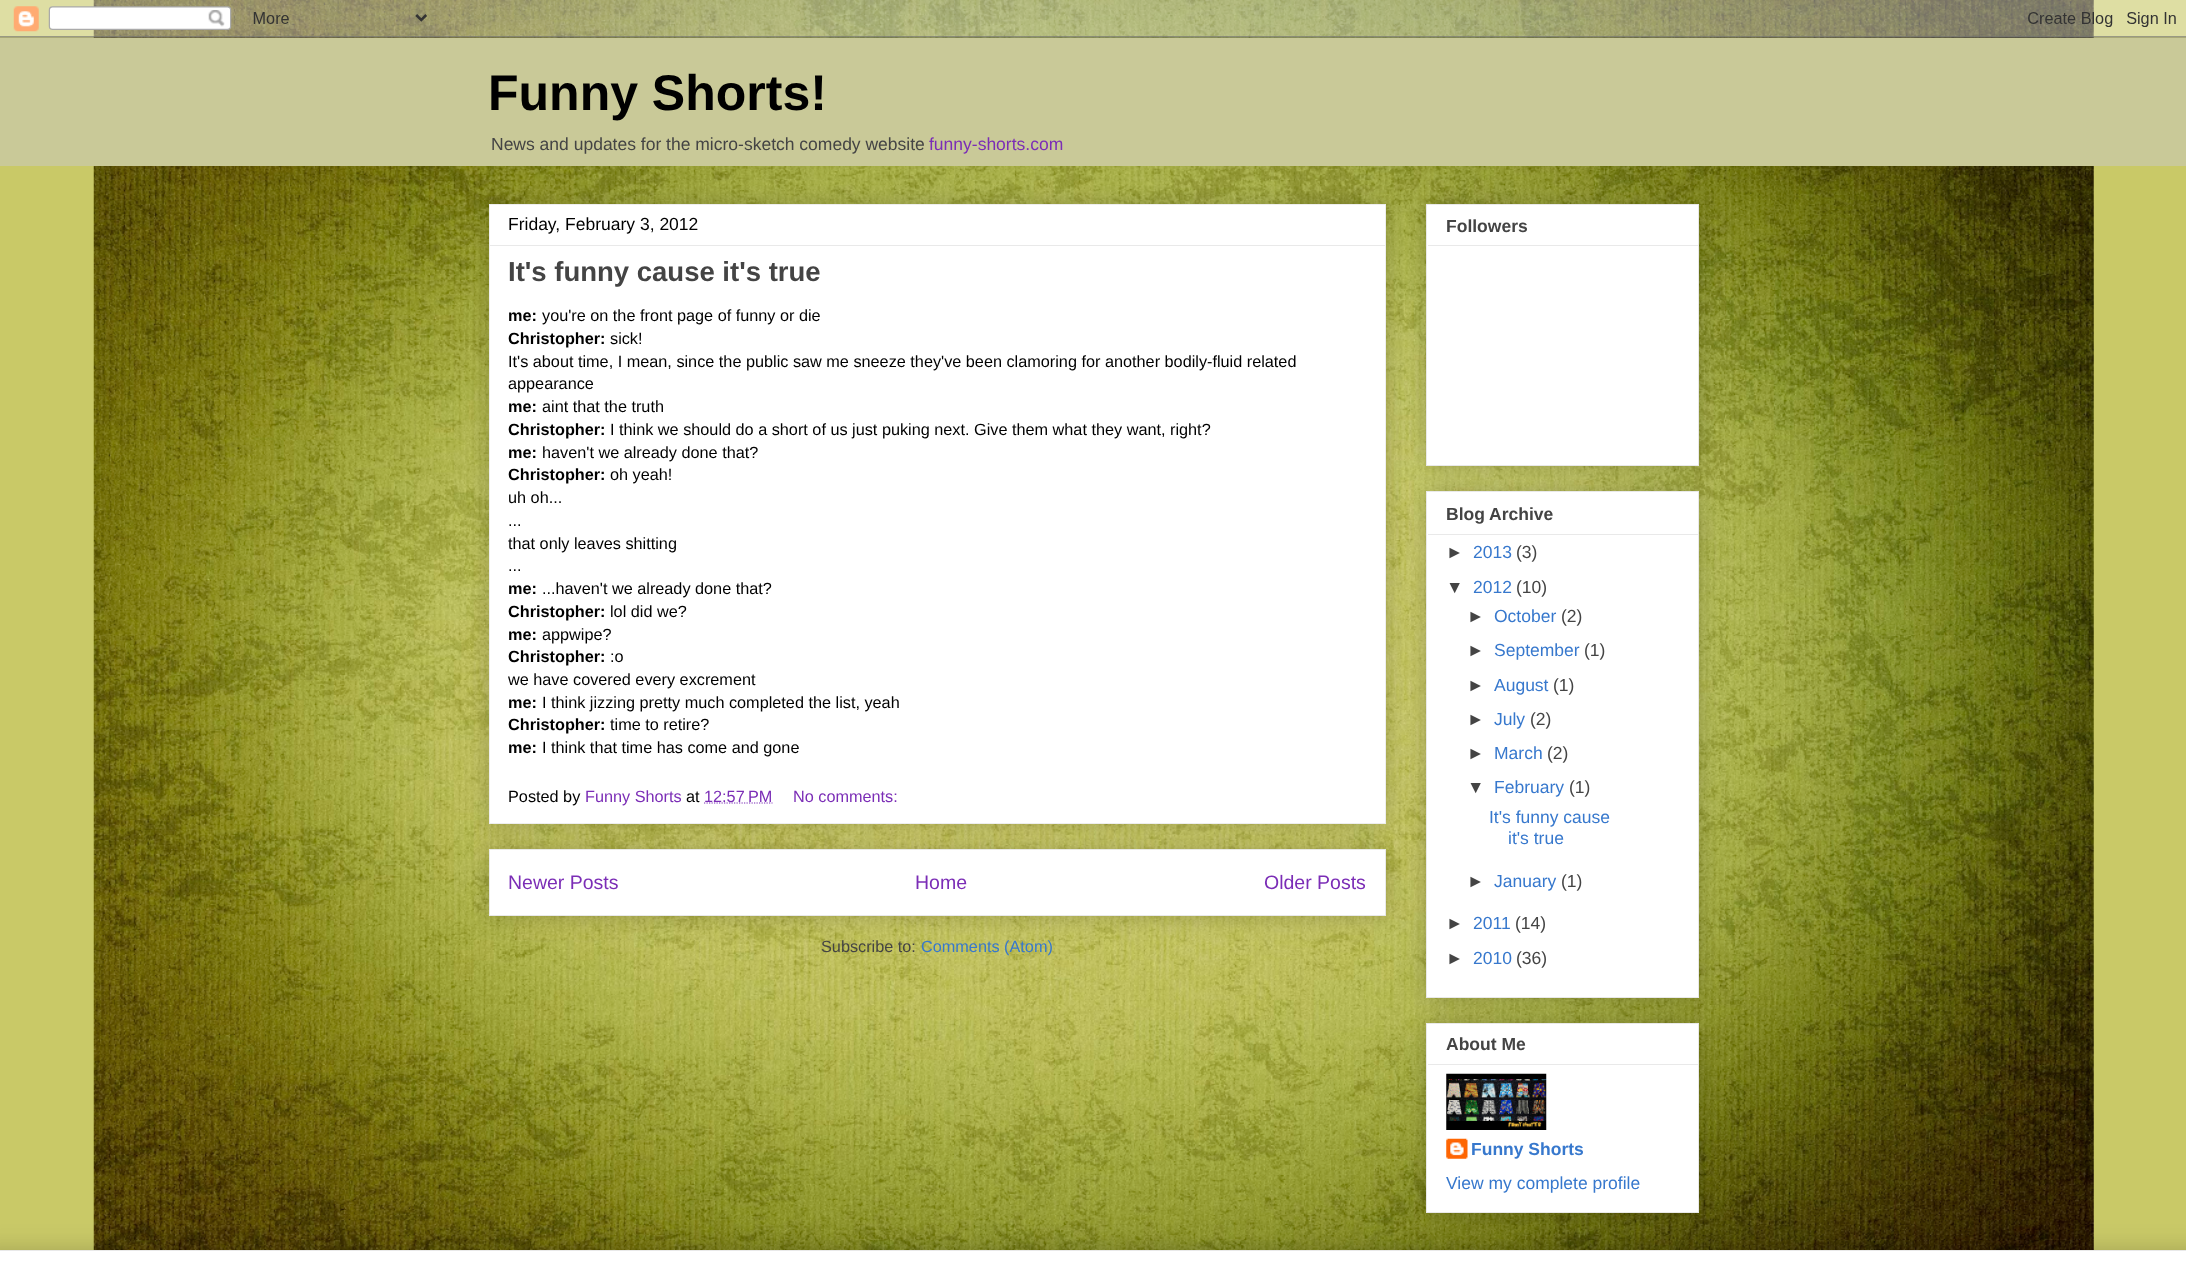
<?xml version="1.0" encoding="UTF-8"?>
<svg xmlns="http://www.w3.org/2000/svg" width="2186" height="1280">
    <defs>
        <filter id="blur1" x="-50%" y="-200%" width="200%" height="500%"><feGaussianBlur stdDeviation="12.5"/></filter>
    </defs>
    <rect width="100%" height="100%" fill="#C9C967"/>
    <image x="93" y="0" width="2001" height="1250" href="img_01.png"/>
    <image x="0" y="0" width="2186" height="38" href="img_02.png"/>
    <rect x="0" y="38" width="2186" height="128" fill="#C9C998"/>
    <text x="488" y="110" font-family="Liberation Sans" font-size="50" font-weight="700" fill="#000000">Funny Shorts!</text>
    <text x="491" y="150" font-family="Liberation Sans" font-size="17.5" fill="#444444">News and updates for the micro-sketch comedy website</text>
    <text x="929" y="150" font-family="Liberation Sans" font-size="17.5" fill="#7B2DB6">funny-shorts.com</text>
    <rect x="489" y="849" width="897" height="67" fill="#000000" fill-opacity="0.2" filter="url(#blur1)"/>
    <rect x="489.5" y="849.5" width="896" height="66" fill="#FFFFFF" stroke="#E9E9E9"/>
    <rect x="489" y="204" width="897" height="620" fill="#000000" fill-opacity="0.2" filter="url(#blur1)"/>
    <rect x="489.5" y="204.5" width="896" height="619" fill="#FFFFFF" stroke="#EEEEEE"/>
    <text x="508" y="230" font-family="Liberation Sans" font-size="17.5" fill="#000000">Friday, February 3, 2012</text>
    <rect x="490" y="245" width="895" height="1" fill="#E9E9E9"/>
    <text x="508" y="281" font-family="Liberation Sans" font-size="27.5" font-weight="700" fill="#444444">It's funny cause it's true</text>
    <text x="508" y="321" font-family="Liberation Sans" font-size="16.25" font-weight="700" fill="#000000">me:</text>
    <text x="542" y="321" font-family="Liberation Sans" font-size="16.25" fill="#000000">you're on the front page of funny or die</text>
    <text x="508" y="344" font-family="Liberation Sans" font-size="16.25" font-weight="700" fill="#000000">Christopher:</text>
    <text x="610" y="344" font-family="Liberation Sans" font-size="16.25" fill="#000000">sick!</text>
    <text font-family="Liberation Sans" font-size="16.25" fill="#000000">
        <tspan x="508" y="367">It's about time, I mean, since the public saw me sneeze they've been clamoring for another bodily-fluid related</tspan>
        <tspan x="508" y="389">appearance</tspan>
    </text>
    <text x="508" y="412" font-family="Liberation Sans" font-size="16.25" font-weight="700" fill="#000000">me:</text>
    <text x="542" y="412" font-family="Liberation Sans" font-size="16.25" fill="#000000">aint that the truth</text>
    <text x="508" y="435" font-family="Liberation Sans" font-size="16.25" font-weight="700" fill="#000000">Christopher:</text>
    <text x="610" y="435" font-family="Liberation Sans" font-size="16.25" fill="#000000">I think we should do a short of us just puking next. Give them what they want, right?</text>
    <text x="508" y="458" font-family="Liberation Sans" font-size="16.25" font-weight="700" fill="#000000">me:</text>
    <text x="542" y="458" font-family="Liberation Sans" font-size="16.25" fill="#000000">haven't we already done that?</text>
    <text x="508" y="480" font-family="Liberation Sans" font-size="16.25" font-weight="700" fill="#000000">Christopher:</text>
    <text x="610" y="480" font-family="Liberation Sans" font-size="16.25" fill="#000000">oh yeah!</text>
    <text font-family="Liberation Sans" font-size="16.25" fill="#000000">
        <tspan x="508" y="503">uh oh...</tspan>
        <tspan x="508" y="526">...</tspan>
        <tspan x="508" y="549">that only leaves shitting</tspan>
        <tspan x="508" y="571">...</tspan>
    </text>
    <text x="508" y="594" font-family="Liberation Sans" font-size="16.25" font-weight="700" fill="#000000">me:</text>
    <text x="542" y="594" font-family="Liberation Sans" font-size="16.25" fill="#000000">...haven't we already done that?</text>
    <text x="508" y="617" font-family="Liberation Sans" font-size="16.25" font-weight="700" fill="#000000">Christopher:</text>
    <text x="610" y="617" font-family="Liberation Sans" font-size="16.25" fill="#000000">lol did we?</text>
    <text x="508" y="640" font-family="Liberation Sans" font-size="16.25" font-weight="700" fill="#000000">me:</text>
    <text x="542" y="640" font-family="Liberation Sans" font-size="16.25" fill="#000000">appwipe?</text>
    <text x="508" y="662" font-family="Liberation Sans" font-size="16.25" font-weight="700" fill="#000000">Christopher:</text>
    <text x="610" y="662" font-family="Liberation Sans" font-size="16.25" fill="#000000">:o</text>
    <text x="508" y="685" font-family="Liberation Sans" font-size="16.25" fill="#000000">we have covered every excrement</text>
    <text x="508" y="708" font-family="Liberation Sans" font-size="16.25" font-weight="700" fill="#000000">me:</text>
    <text x="542" y="708" font-family="Liberation Sans" font-size="16.25" fill="#000000">I think jizzing pretty much completed the list, yeah</text>
    <text x="508" y="730" font-family="Liberation Sans" font-size="16.25" font-weight="700" fill="#000000">Christopher:</text>
    <text x="610" y="730" font-family="Liberation Sans" font-size="16.25" fill="#000000">time to retire?</text>
    <text x="508" y="753" font-family="Liberation Sans" font-size="16.25" font-weight="700" fill="#000000">me:</text>
    <text x="542" y="753" font-family="Liberation Sans" font-size="16.25" fill="#000000">I think that time has come and gone</text>
    <text x="508" y="802" font-family="Liberation Sans" font-size="16.25" fill="#000000">Posted by</text>
    <text x="585" y="802" font-family="Liberation Sans" font-size="16.25" fill="#7B2DB6">Funny Shorts</text>
    <text x="686" y="802" font-family="Liberation Sans" font-size="16.25" fill="#000000">at</text>
    <path d="M 704 803 H 772.5" fill="none" stroke="#7B2DB6" stroke-width="1.2" stroke-dasharray="1.25 1.25"/>
    <text x="704" y="802" font-family="Liberation Sans" font-size="16.25" fill="#7B2DB6">12:57 PM</text>
    <text x="793" y="802" font-family="Liberation Sans" font-size="16.25" fill="#7B2DB6">No comments:</text>
    <text x="508" y="889" font-family="Liberation Sans" font-size="19.5" fill="#7B2DB6">Newer Posts</text>
    <text x="915" y="889" font-family="Liberation Sans" font-size="19.5" fill="#7B2DB6">Home</text>
    <text x="1264" y="889" font-family="Liberation Sans" font-size="19.5" fill="#7B2DB6">Older Posts</text>
    <text x="821" y="952" font-family="Liberation Sans" font-size="16.25" fill="#444444">Subscribe to:</text>
    <text x="921" y="952" font-family="Liberation Sans" font-size="16.25" fill="#3778CD">Comments (Atom)</text>
    <rect x="1426" y="204" width="273" height="262" fill="#000000" fill-opacity="0.2" filter="url(#blur1)"/>
    <rect x="1426.5" y="204.5" width="272" height="261" fill="#FFFFFF" stroke="#E9E9E9"/>
    <text x="1446" y="232" font-family="Liberation Sans" font-size="17.5" font-weight="700" fill="#444444">Followers</text>
    <rect x="1428" y="245" width="270" height="1" fill="#E9E9E9"/>
    <rect x="1426" y="491" width="273" height="507" fill="#000000" fill-opacity="0.2" filter="url(#blur1)"/>
    <rect x="1426.5" y="491.5" width="272" height="506" fill="#FFFFFF" stroke="#E9E9E9"/>
    <text x="1446" y="520" font-family="Liberation Sans" font-size="17.5" font-weight="700" fill="#444444">Blog Archive</text>
    <rect x="1428" y="534" width="270" height="1" fill="#E9E9E9"/>
    <text x="1446" y="558" font-family="Liberation Sans" font-size="17.5" fill="#444444">►</text>
    <text x="1473" y="558" font-family="Liberation Sans" font-size="17.5" fill="#3778CD">2013</text>
    <text x="1516" y="558" font-family="Liberation Sans" font-size="17.5" fill="#444444">(3)</text>
    <text x="1446" y="593" font-family="Liberation Sans" font-size="17.5" fill="#444444">▼</text>
    <text x="1473" y="593" font-family="Liberation Sans" font-size="17.5" fill="#3778CD">2012</text>
    <text x="1516" y="593" font-family="Liberation Sans" font-size="17.5" fill="#444444">(10)</text>
    <text x="1467" y="622" font-family="Liberation Sans" font-size="17.5" fill="#444444">►</text>
    <text x="1494" y="622" font-family="Liberation Sans" font-size="17.5" fill="#3778CD">October</text>
    <text x="1561" y="622" font-family="Liberation Sans" font-size="17.5" fill="#444444">(2)</text>
    <text x="1467" y="656" font-family="Liberation Sans" font-size="17.5" fill="#444444">►</text>
    <text x="1494" y="656" font-family="Liberation Sans" font-size="17.5" fill="#3778CD">September</text>
    <text x="1584" y="656" font-family="Liberation Sans" font-size="17.5" fill="#444444">(1)</text>
    <text x="1467" y="691" font-family="Liberation Sans" font-size="17.5" fill="#444444">►</text>
    <text x="1494" y="691" font-family="Liberation Sans" font-size="17.5" fill="#3778CD">August</text>
    <text x="1553" y="691" font-family="Liberation Sans" font-size="17.5" fill="#444444">(1)</text>
    <text x="1467" y="725" font-family="Liberation Sans" font-size="17.5" fill="#444444">►</text>
    <text x="1494" y="725" font-family="Liberation Sans" font-size="17.5" fill="#3778CD">July</text>
    <text x="1530" y="725" font-family="Liberation Sans" font-size="17.5" fill="#444444">(2)</text>
    <text x="1467" y="759" font-family="Liberation Sans" font-size="17.5" fill="#444444">►</text>
    <text x="1494" y="759" font-family="Liberation Sans" font-size="17.5" fill="#3778CD">March</text>
    <text x="1547" y="759" font-family="Liberation Sans" font-size="17.5" fill="#444444">(2)</text>
    <text x="1467" y="793" font-family="Liberation Sans" font-size="17.5" fill="#444444">▼</text>
    <text x="1494" y="793" font-family="Liberation Sans" font-size="17.5" fill="#3778CD">February</text>
    <text x="1569" y="793" font-family="Liberation Sans" font-size="17.5" fill="#444444">(1)</text>
    <text x="1489" y="823" font-family="Liberation Sans" font-size="17.5" fill="#3778CD">It's funny cause</text>
    <text x="1508" y="844" font-family="Liberation Sans" font-size="17.5" fill="#3778CD">it's true</text>
    <text x="1467" y="887" font-family="Liberation Sans" font-size="17.5" fill="#444444">►</text>
    <text x="1494" y="887" font-family="Liberation Sans" font-size="17.5" fill="#3778CD">January</text>
    <text x="1561" y="887" font-family="Liberation Sans" font-size="17.5" fill="#444444">(1)</text>
    <text x="1446" y="929" font-family="Liberation Sans" font-size="17.5" fill="#444444">►</text>
    <text x="1473" y="929" font-family="Liberation Sans" font-size="17.5" fill="#3778CD">2011</text>
    <text x="1515" y="929" font-family="Liberation Sans" font-size="17.5" fill="#444444">(14)</text>
    <text x="1446" y="964" font-family="Liberation Sans" font-size="17.5" fill="#444444">►</text>
    <text x="1473" y="964" font-family="Liberation Sans" font-size="17.5" fill="#3778CD">2010</text>
    <text x="1516" y="964" font-family="Liberation Sans" font-size="17.5" fill="#444444">(36)</text>
    <rect x="1426" y="1023" width="273" height="190" fill="#000000" fill-opacity="0.2" filter="url(#blur1)"/>
    <rect x="1426.5" y="1023.5" width="272" height="189" fill="#FFFFFF" stroke="#E9E9E9"/>
    <text x="1446" y="1050" font-family="Liberation Sans" font-size="17.5" font-weight="700" fill="#444444">About Me</text>
    <rect x="1428" y="1064" width="270" height="1" fill="#E9E9E9"/>
    <image x="1446" y="1073" width="101" height="57" href="img_03.png"/>
    <image x="1446" y="1138" width="22" height="21" href="img_04.png"/>
    <text x="1471" y="1155" font-family="Liberation Sans" font-size="17.5" font-weight="700" fill="#3778CD">Funny Shorts</text>
    <text x="1446" y="1189" font-family="Liberation Sans" font-size="17.5" fill="#3778CD">View my complete profile</text>
    <rect x="-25" y="1250" width="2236" height="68" fill="#000000" fill-opacity="0.2" filter="url(#blur1)"/>
    <rect x="0" y="1251" width="2186" height="29" fill="#FFFFFF"/>
    <rect x="0" y="1250" width="2186" height="1" fill="#E9E9E9"/>
</svg>
